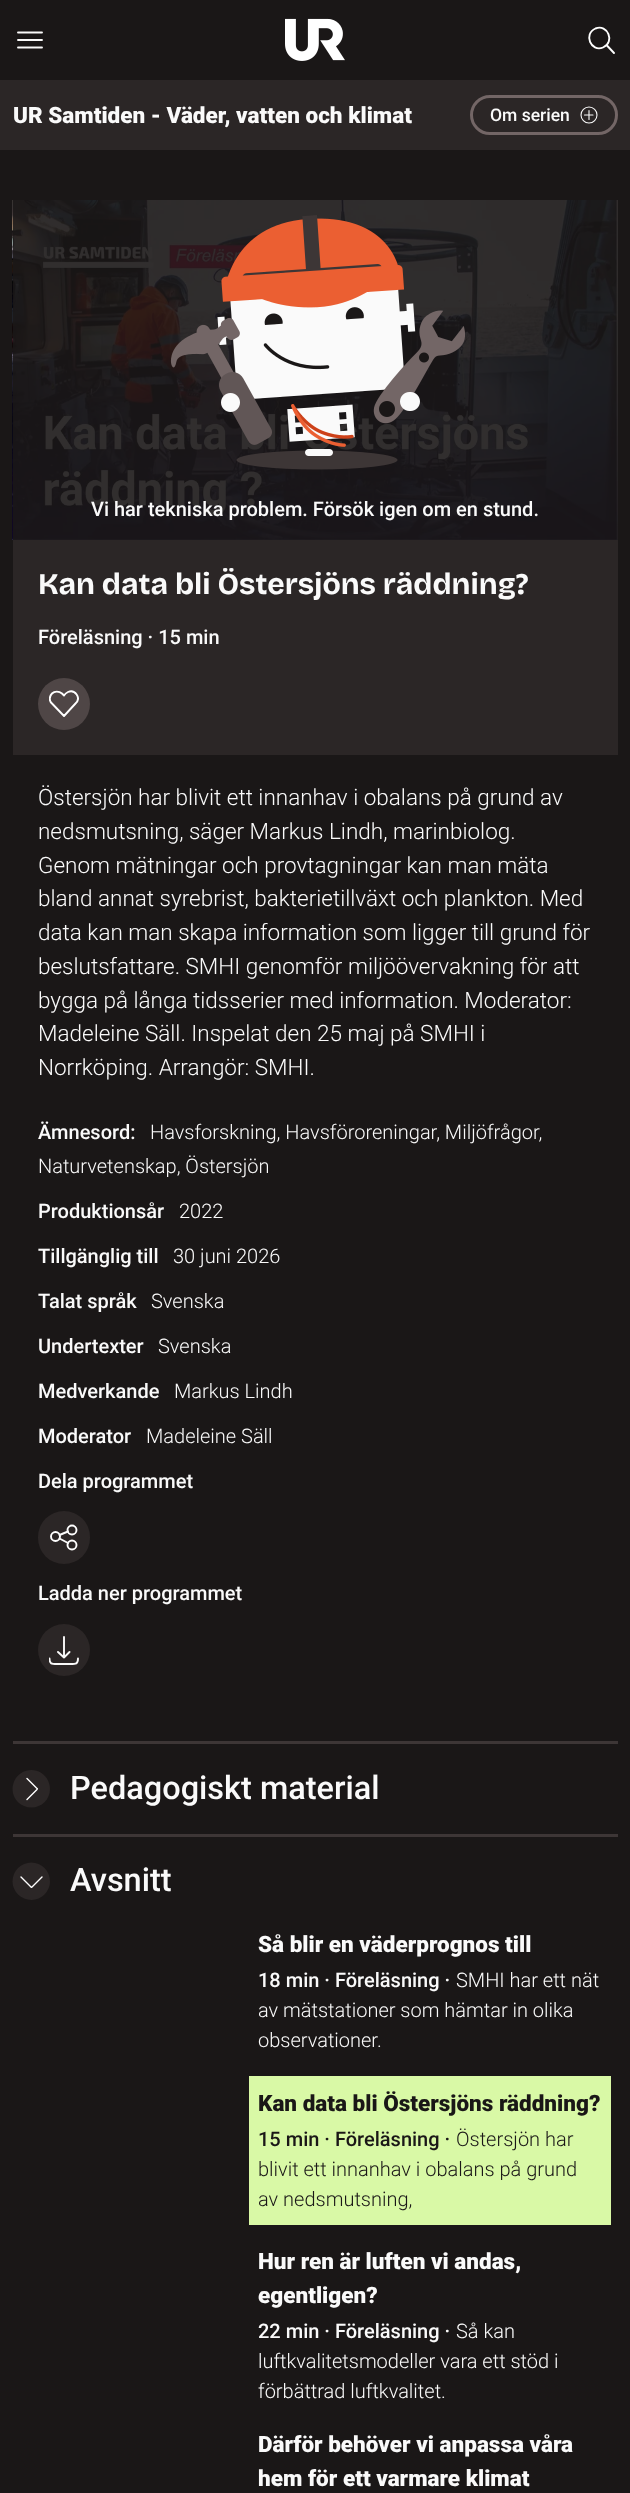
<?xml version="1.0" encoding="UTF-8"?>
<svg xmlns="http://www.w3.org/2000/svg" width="630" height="2493">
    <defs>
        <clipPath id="clip1"><rect x="49" y="689" width="30" height="30"/></clipPath>
        <clipPath id="clip2"><rect x="49" y="1635" width="30" height="30"/></clipPath>
    </defs>
    <rect width="100%" height="100%" fill="#1A1717"/>
    <path d="M 18 47.5 H 42 M 18 40 H 42 M 18 32.5 H 42" fill="none" stroke="#FAFAFA" stroke-width="1.9" stroke-linecap="round" stroke-linejoin="round"/>
    <image x="285" y="18" width="60" height="43" href="img_01.png"/>
    <path d="M 595.5 28.5 C 607.5 23.5 615.5 42 603 47.5 C 591 52.5 583 34 595.5 28.5 Z M 606.5 45 L 614 53" fill="none" stroke="#FFFFFF" stroke-width="1.9" stroke-linecap="round" stroke-linejoin="round"/>
    <rect x="0" y="80" width="630" height="70" fill="#2B2626"/>
    <text x="13" y="123" font-family="Roboto" font-size="22.5" font-weight="900" fill="#FAFAFA">UR Samtiden - Väder, vatten och klimat</text>
    <rect x="471.5" y="96.5" width="145" height="37" rx="18.5" fill="none" stroke="#736666" stroke-width="3"/>
    <text x="490" y="121" font-family="Roboto" font-size="17.5" font-weight="500" fill="#FAFAFA">Om serien</text>
    <path d="M 584.5 115 H 593 M 589 110.5 V 119.5" fill="none" stroke="#FAFAFA" stroke-width="1.1" stroke-linecap="round" stroke-linejoin="round"/>
    <circle cx="589" cy="115" r="8" fill="none" stroke="#FAFAFA" stroke-width="1.1"/>
    <rect x="13" y="200" width="605" height="555" fill="#2B2626"/>
    <image x="12" y="200" width="606" height="340" href="img_03.png"/>
    <image x="12" y="200" width="606" height="340" href="img_02.png"/>
    <image x="170" y="215" width="295" height="255" href="img_04.png"/>
    <text x="91" y="516" font-family="Roboto" font-size="20" font-weight="500" fill="#FAFAFA">Vi har tekniska problem. Försök igen om en stund.</text>
    <text x="38" y="594" font-family="Bricolage Grotesque" font-size="30" font-weight="800" fill="#FAFAFA">Kan data bli Östersjöns räddning?</text>
    <text x="38" y="644" font-family="Roboto" font-size="20" font-weight="500" fill="#FAFAFA">Föreläsning · 15 min</text>
    <circle cx="64" cy="704" r="26" fill="#4F4646"/>
    <g clip-path="url(#clip1)">
        <path d="M 64 716 L 52 703.5 C 49 701 49 696.5 52 693.5 C 54.5 691 59 691 62 693.5 L 64 695.5 C 65 694 66 693 68 692 C 75 689 81.5 698 75.5 703.5 Z" fill="none" stroke="#FFFFFF" stroke-width="1.9" stroke-linecap="round" stroke-linejoin="round"/>
    </g>
    <text font-family="Roboto" font-size="22.5" font-weight="300" fill="#FAFAFA">
        <tspan x="38" y="805">Östersjön har blivit ett innanhav i obalans på grund av</tspan>
        <tspan x="38" y="839">nedsmutsning, säger Markus Lindh, marinbiolog.</tspan>
        <tspan x="38" y="873">Genom mätningar och provtagningar kan man mäta</tspan>
        <tspan x="38" y="906">bland annat syrebrist, bakterietillväxt och plankton. Med</tspan>
        <tspan x="38" y="940">data kan man skapa information som ligger till grund för</tspan>
        <tspan x="38" y="974">beslutsfattare. SMHI genomför miljöövervakning för att</tspan>
        <tspan x="38" y="1008">bygga på långa tidsserier med information. Moderator:</tspan>
        <tspan x="38" y="1041">Madeleine Säll. Inspelat den 25 maj på SMHI i</tspan>
        <tspan x="38" y="1075">Norrköping. Arrangör: SMHI.</tspan>
    </text>
    <text x="38" y="1139" font-family="Roboto" font-size="20" font-weight="500" fill="#FAFAFA">Ämnesord:</text>
    <text x="150" y="1139" font-family="Roboto" font-size="20" font-weight="300" fill="#FAFAFA">Havsforskning, Havsföroreningar, Miljöfrågor,</text>
    <text x="38" y="1173" font-family="Roboto" font-size="20" font-weight="300" fill="#FAFAFA">Naturvetenskap, Östersjön</text>
    <text x="38" y="1218" font-family="Roboto" font-size="20" font-weight="500" fill="#FAFAFA">Produktionsår</text>
    <text x="179" y="1218" font-family="Roboto" font-size="20" font-weight="300" fill="#FAFAFA">2022</text>
    <text x="38" y="1263" font-family="Roboto" font-size="20" font-weight="500" fill="#FAFAFA">Tillgänglig till</text>
    <text x="173" y="1263" font-family="Roboto" font-size="20" font-weight="300" fill="#FAFAFA">30 juni 2026</text>
    <text x="38" y="1308" font-family="Roboto" font-size="20" font-weight="500" fill="#FAFAFA">Talat språk</text>
    <text x="151" y="1308" font-family="Roboto" font-size="20" font-weight="300" fill="#FAFAFA">Svenska</text>
    <text x="38" y="1353" font-family="Roboto" font-size="20" font-weight="500" fill="#FAFAFA">Undertexter</text>
    <text x="158" y="1353" font-family="Roboto" font-size="20" font-weight="300" fill="#FAFAFA">Svenska</text>
    <text x="38" y="1398" font-family="Roboto" font-size="20" font-weight="500" fill="#FAFAFA">Medverkande</text>
    <text x="174" y="1398" font-family="Roboto" font-size="20" font-weight="300" fill="#FAFAFA">Markus Lindh</text>
    <text x="38" y="1443" font-family="Roboto" font-size="20" font-weight="500" fill="#FAFAFA">Moderator</text>
    <text x="146" y="1443" font-family="Roboto" font-size="20" font-weight="300" fill="#FAFAFA">Madeleine Säll</text>
    <text x="38" y="1488" font-family="Roboto" font-size="20" font-weight="500" fill="#FAFAFA">Dela programmet</text>
    <rect x="38" y="1511" width="52" height="53" rx="26" fill="#2B2626"/>
    <circle cx="55.5" cy="1536.5" r="4.5" fill="none" stroke="#FFFFFF" stroke-width="1.9"/>
    <circle cx="72" cy="1530" r="4.5" fill="none" stroke="#FFFFFF" stroke-width="1.9"/>
    <circle cx="72" cy="1545" r="4.5" fill="none" stroke="#FFFFFF" stroke-width="1.9"/>
    <path d="M 59.5 1535 L 68 1531.5 M 59.5 1538.5 L 68 1543" fill="none" stroke="#FAFAFA" stroke-width="1.9" stroke-linecap="round" stroke-linejoin="round"/>
    <text x="38" y="1600" font-family="Roboto" font-size="20" font-weight="500" fill="#FAFAFA">Ladda ner programmet</text>
    <circle cx="64" cy="1650" r="26" fill="#2B2626"/>
    <g clip-path="url(#clip2)">
        <path d="M 64 1637 V 1657.5 M 58 1652 L 64 1657.5 L 69.5 1652 M 78 1658.5 C 78 1664 76 1664 70.5 1664 H 57 C 51.5 1664 49.5 1664 49.5 1658.5" fill="none" stroke="#FAFAFA" stroke-width="1.9" stroke-linecap="round" stroke-linejoin="round"/>
    </g>
    <rect x="13" y="1741" width="605" height="3" fill="#3D3636"/>
    <path d="M 50 1789 C 50 1799.5 41.5 1807.5 31.5 1807.5 C 21 1807.5 12.5 1799.5 12.5 1789 C 12.5 1778.5 21 1770 31.5 1770 C 41.5 1770 50 1778.5 50 1789 Z" fill="#2B2626"/>
    <path d="M 27 1799.5 L 37 1789.5 C 37.5 1789 37.5 1788.5 37 1788.5 L 27 1778.5" fill="none" stroke="#FFFFFF" stroke-width="1.4" stroke-linecap="round" stroke-linejoin="round"/>
    <text x="70" y="1799" font-family="Roboto" font-size="32.5" font-weight="500" fill="#FAFAFA">Pedagogiskt material</text>
    <rect x="13" y="1834" width="605" height="3" fill="#3D3636"/>
    <path d="M 31.5 1900 C 21 1900 12.5 1891.5 12.5 1881.5 C 12.5 1871 21 1862.5 31.5 1862.5 C 41.5 1862.5 50 1871 50 1881.5 C 50 1891.5 41.5 1900 31.5 1900 Z" fill="#2B2626"/>
    <path d="M 21 1877 L 31 1887 C 31 1887.5 31.5 1887.5 32 1887 L 42 1877" fill="none" stroke="#FFFFFF" stroke-width="1.4" stroke-linecap="round" stroke-linejoin="round"/>
    <text x="70" y="1891" font-family="Roboto" font-size="32.5" font-weight="500" fill="#FAFAFA">Avsnitt</text>
    <text x="258" y="1952" font-family="Roboto" font-size="22.5" font-weight="900" fill="#FAFAFA">Så blir en väderprognos till</text>
    <text x="258" y="1987" font-family="Roboto" font-size="20" font-weight="500" fill="#FAFAFA">18 min · Föreläsning ·</text>
    <text x="456" y="1987" font-family="Roboto" font-size="20" font-weight="300" fill="#FAFAFA">SMHI har ett nät</text>
    <text font-family="Roboto" font-size="20" font-weight="300" fill="#FAFAFA">
        <tspan x="258" y="2017">av mätstationer som hämtar in olika</tspan>
        <tspan x="258" y="2047">observationer.</tspan>
    </text>
    <rect x="249" y="2076" width="362" height="149" fill="#D9F9A6"/>
    <text x="258" y="2111" font-family="Roboto" font-size="22.5" font-weight="900" fill="#1A1717">Kan data bli Östersjöns räddning?</text>
    <text x="258" y="2146" font-family="Roboto" font-size="20" font-weight="500" fill="#1A1717">15 min · Föreläsning ·</text>
    <text x="456" y="2146" font-family="Roboto" font-size="20" font-weight="300" fill="#1A1717">Östersjön har</text>
    <text font-family="Roboto" font-size="20" font-weight="300" fill="#1A1717">
        <tspan x="258" y="2176">blivit ett innanhav i obalans på grund</tspan>
        <tspan x="258" y="2206">av nedsmutsning,</tspan>
    </text>
    <text font-family="Roboto" font-size="22.5" font-weight="900" fill="#FAFAFA">
        <tspan x="258" y="2269">Hur ren är luften vi andas,</tspan>
        <tspan x="258" y="2303">egentligen?</tspan>
    </text>
    <text x="258" y="2338" font-family="Roboto" font-size="20" font-weight="500" fill="#FAFAFA">22 min · Föreläsning ·</text>
    <text x="456" y="2338" font-family="Roboto" font-size="20" font-weight="300" fill="#FAFAFA">Så kan</text>
    <text font-family="Roboto" font-size="20" font-weight="300" fill="#FAFAFA">
        <tspan x="258" y="2368">luftkvalitetsmodeller vara ett stöd i</tspan>
        <tspan x="258" y="2398">förbättrad luftkvalitet.</tspan>
    </text>
    <text font-family="Roboto" font-size="22.5" font-weight="900" fill="#FAFAFA">
        <tspan x="258" y="2452">Därför behöver vi anpassa våra</tspan>
        <tspan x="258" y="2486">hem för ett varmare klimat</tspan>
    </text>
</svg>
